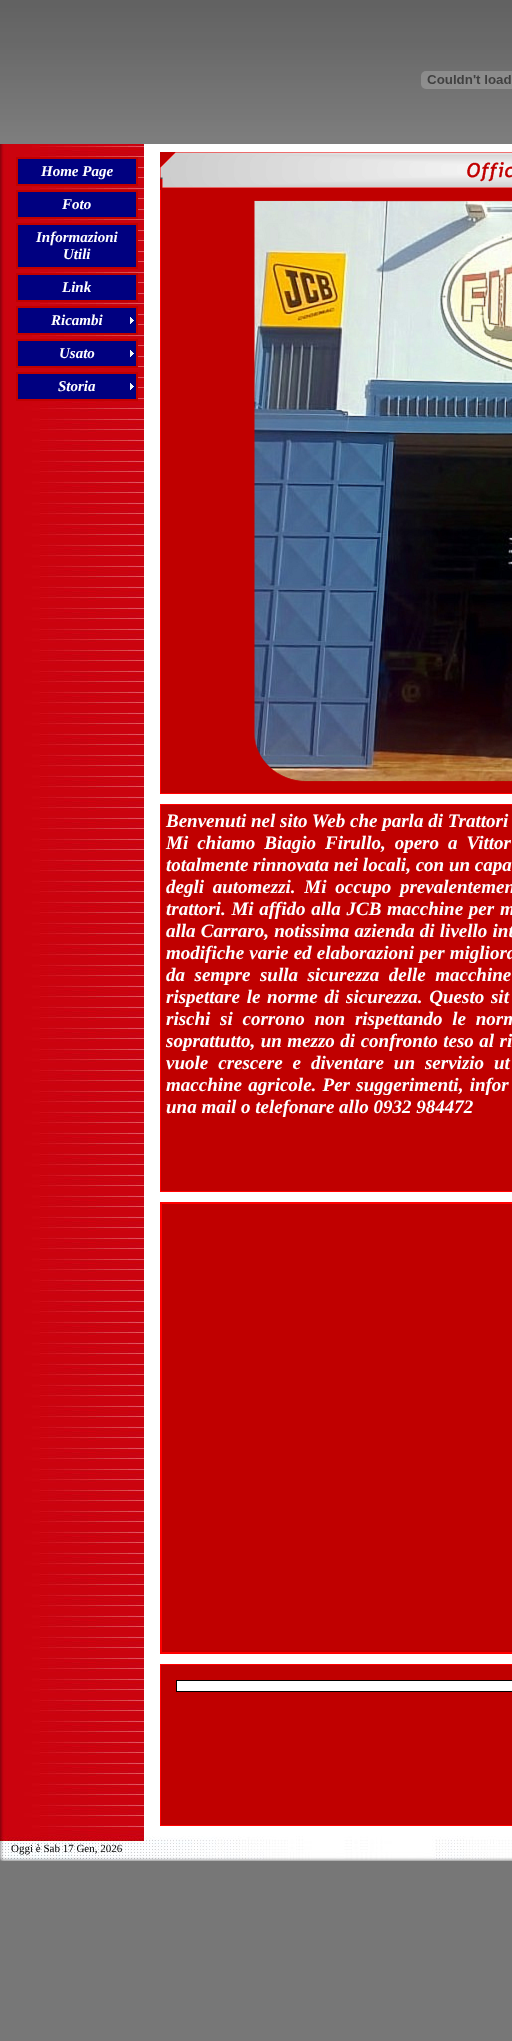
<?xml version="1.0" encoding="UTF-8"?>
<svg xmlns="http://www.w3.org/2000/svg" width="512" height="2041">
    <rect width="100%" height="100%" fill="#777777"/>
    <image x="0" y="0" width="512" height="144" href="img_01.png"/>
    <image x="421" y="71" width="91" height="18" href="img_02.png"/>
    <image x="0" y="144" width="512" height="1692" href="img_03.png"/>
    <rect x="17" y="158" width="120" height="27" fill="#000080" stroke="#C00000" stroke-width="2"/>
    <text x="41" y="176" font-family="Liberation Serif" font-size="15" font-weight="700" font-style="italic" fill="#FFFFFF">Home Page</text>
    <rect x="17" y="191" width="120" height="27" fill="#000080" stroke="#C00000" stroke-width="2"/>
    <text x="62" y="209" font-family="Liberation Serif" font-size="15" font-weight="700" font-style="italic" fill="#FFFFFF">Foto</text>
    <rect x="17" y="224" width="120" height="44" fill="#000080" stroke="#C00000" stroke-width="2"/>
    <text x="36" y="242" font-family="Liberation Serif" font-size="15" font-weight="700" font-style="italic" fill="#FFFFFF">Informazioni</text>
    <text x="63" y="259" font-family="Liberation Serif" font-size="15" font-weight="700" font-style="italic" fill="#FFFFFF">Utili</text>
    <rect x="17" y="274" width="120" height="27" fill="#000080" stroke="#C00000" stroke-width="2"/>
    <text x="62" y="292" font-family="Liberation Serif" font-size="15" font-weight="700" font-style="italic" fill="#FFFFFF">Link</text>
    <rect x="18" y="308" width="118" height="25" fill="#000080"/>
    <image x="130" y="317" width="4" height="7" href="img_04.png"/>
    <rect x="17" y="307" width="120" height="27" fill="none" stroke="#C00000" stroke-width="2"/>
    <text x="51" y="325" font-family="Liberation Serif" font-size="15" font-weight="700" font-style="italic" fill="#FFFFFF">Ricambi</text>
    <rect x="18" y="341" width="118" height="25" fill="#000080"/>
    <image x="130" y="350" width="4" height="7" href="img_04.png"/>
    <rect x="17" y="340" width="120" height="27" fill="none" stroke="#C00000" stroke-width="2"/>
    <text x="59" y="358" font-family="Liberation Serif" font-size="15" font-weight="700" font-style="italic" fill="#FFFFFF">Usato</text>
    <rect x="18" y="374" width="118" height="25" fill="#000080"/>
    <image x="130" y="383" width="4" height="7" href="img_04.png"/>
    <rect x="17" y="373" width="120" height="27" fill="none" stroke="#C00000" stroke-width="2"/>
    <text x="58" y="391" font-family="Liberation Serif" font-size="15" font-weight="700" font-style="italic" fill="#FFFFFF">Storia</text>
    <rect x="160" y="152" width="352" height="641" fill="#C00000"/>
    <image x="160" y="152" width="352" height="36" href="img_05.png"/>
    <rect x="160" y="793" width="352" height="1" fill="#FF0000"/>
    <rect x="160" y="190" width="1" height="604" fill="#FF0000"/>
    <image x="254" y="200" width="258" height="582" href="img_06.png"/>
    <rect x="160.5" y="804.5" width="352" height="387" fill="#C00000" stroke="#FF0000"/>
    <text font-family="Liberation Serif" font-size="19" font-weight="700" font-style="italic" fill="#FFFFFF">
        <tspan x="166" y="827">Benvenuti nel sito Web che parla di Trattori</tspan>
        <tspan x="166" y="849" word-spacing="4.25">Mi chiamo Biagio Firullo, opero a Vittor</tspan>
        <tspan x="166" y="871">totalmente rinnovata nei locali, con un capa</tspan>
        <tspan x="166" y="893" word-spacing="4">degli automezzi. Mi occupo prevalentemen</tspan>
        <tspan x="166" y="915" word-spacing="1">trattori. Mi affido alla JCB macchine per m</tspan>
        <tspan x="166" y="937" word-spacing="0.5">alla Carraro, notissima azienda di livello int</tspan>
        <tspan x="166" y="959" word-spacing="0.5">modifiche varie ed elaborazioni per migliora</tspan>
        <tspan x="166" y="981" word-spacing="4.75">da sempre sulla sicurezza delle macchine</tspan>
        <tspan x="166" y="1003" word-spacing="2">rispettare le norme di sicurezza. Questo sit</tspan>
        <tspan x="166" y="1025" word-spacing="5">rischi si corrono non rispettando le norm</tspan>
        <tspan x="166" y="1047" word-spacing="0.75">soprattutto, un mezzo di confronto teso al ri</tspan>
        <tspan x="166" y="1069" word-spacing="5.25">vuole crescere e diventare un servizio ut</tspan>
        <tspan x="166" y="1091" word-spacing="1.5">macchine agricole. Per suggerimenti, infor</tspan>
        <tspan x="166" y="1113">una mail o telefonare allo 0932 984472</tspan>
    </text>
    <rect x="161" y="1203" width="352" height="450" fill="#C00000" stroke="#FF0000" stroke-width="2"/>
    <rect x="160.5" y="1664.5" width="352" height="161" fill="#C00000" stroke="#FF0000"/>
    <rect x="176.5" y="1680.5" width="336" height="11" fill="#FFFFFF" stroke="#000000"/>
    <image x="0" y="1836" width="512" height="25" href="img_07.png"/>
    <text x="11" y="1852" font-family="Liberation Serif" font-size="11" fill="#000000">Oggi è Sab 17 Gen, 2026</text>
</svg>
